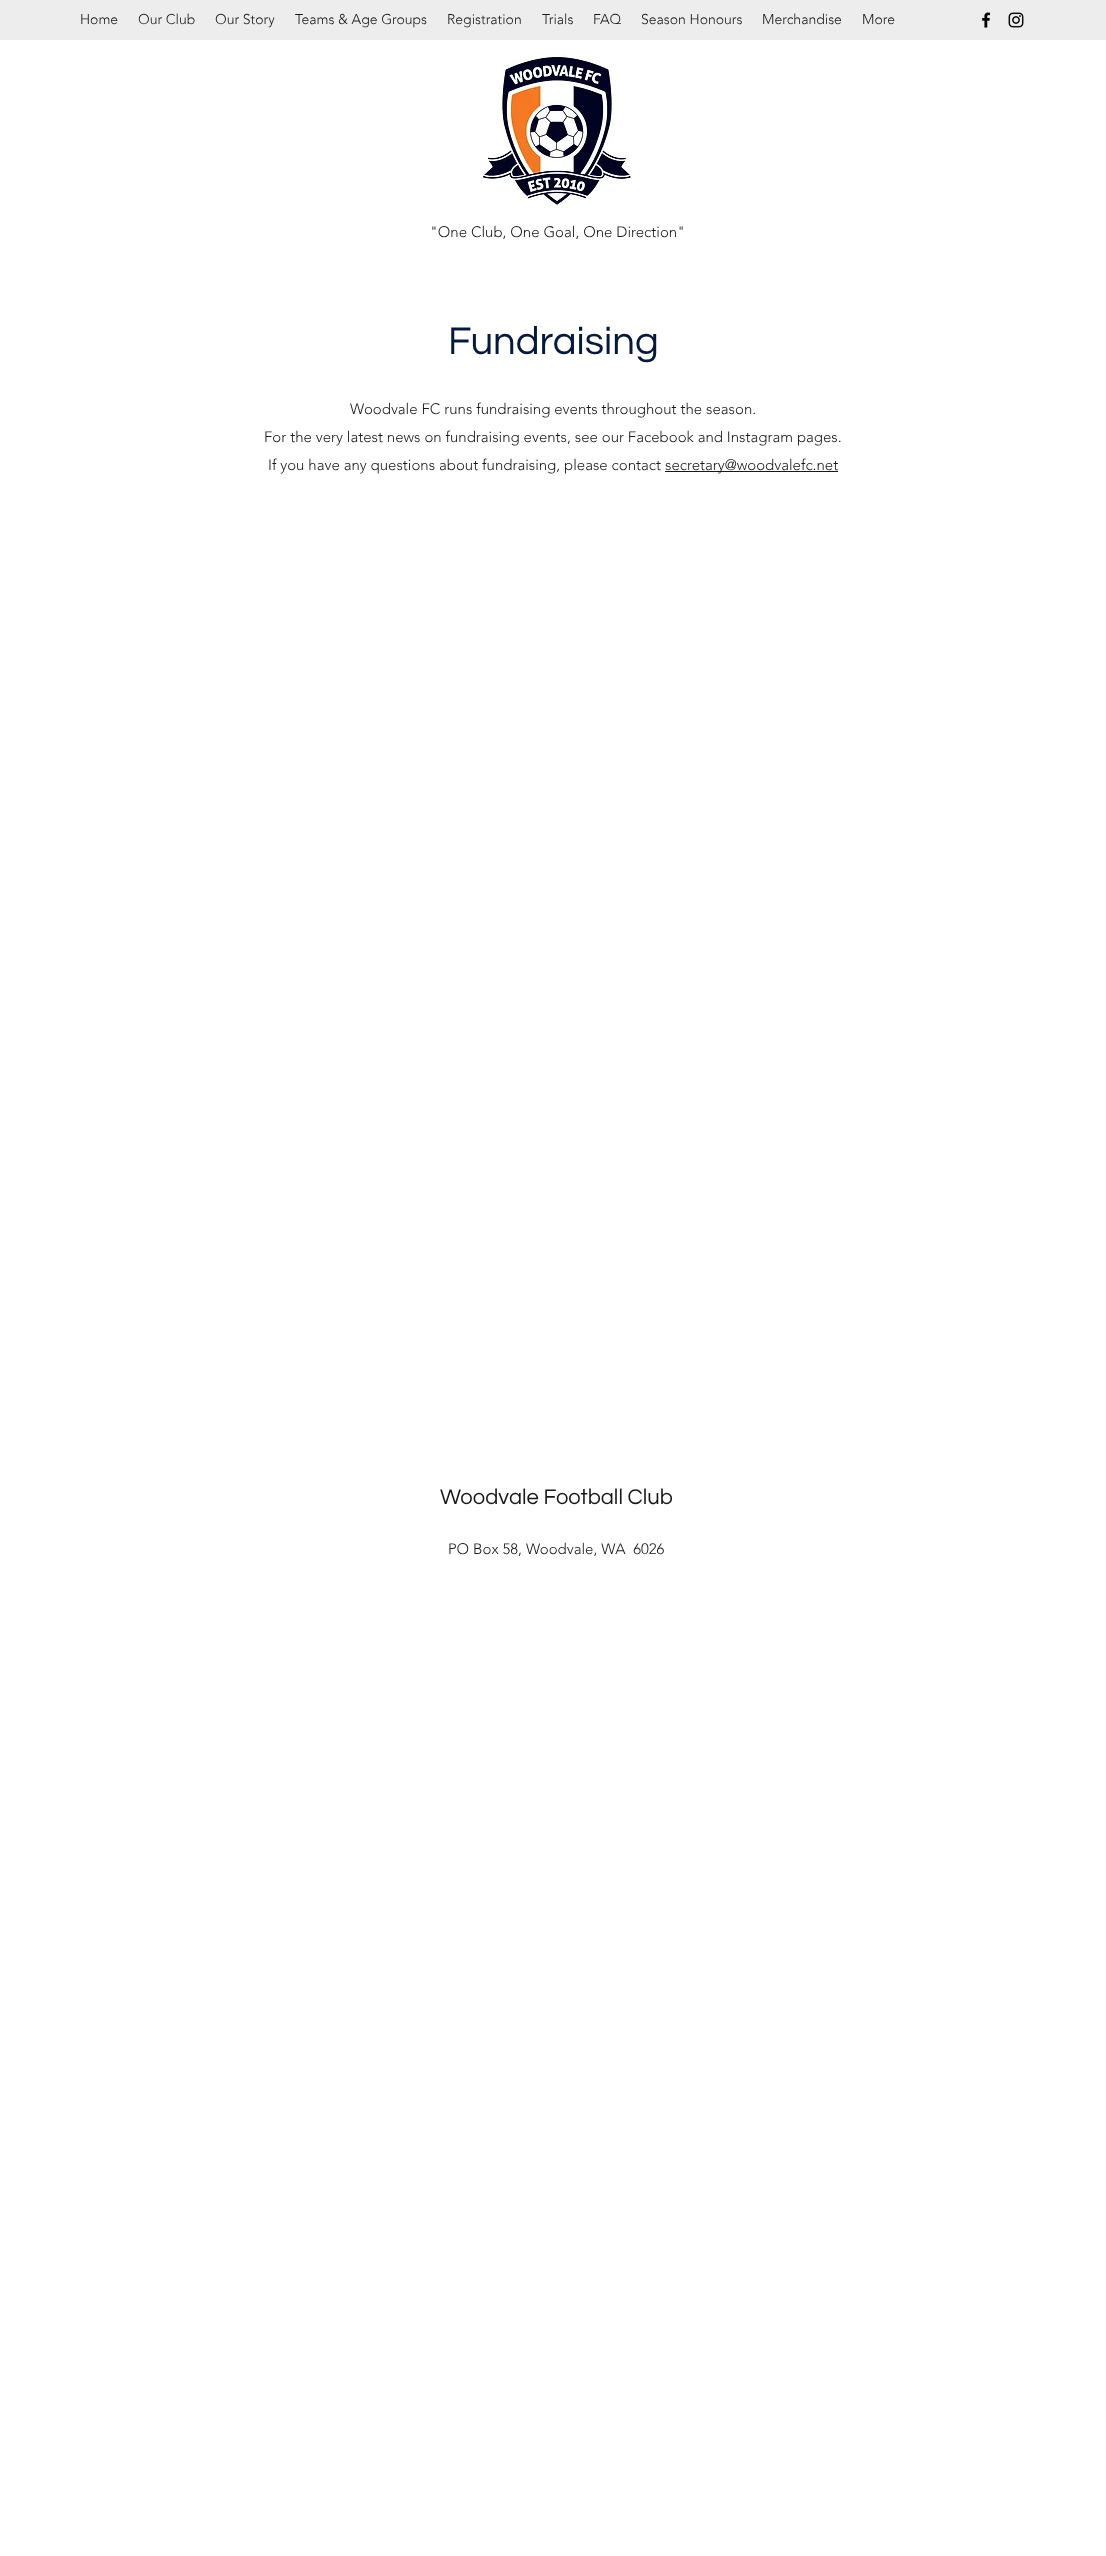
<?xml version="1.0" encoding="UTF-8"?>
<svg xmlns="http://www.w3.org/2000/svg" width="1106" height="2556">
    <rect width="100%" height="100%" fill="#FFFFFF"/>
    <rect x="0" y="0" width="1106" height="40" fill="#EDEDED"/>
    <text x="80" y="24" font-family="'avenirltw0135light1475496'" font-size="14" font-weight="300" fill="#181818">Home</text>
    <text x="138" y="24" font-family="'avenirltw0135light1475496'" font-size="14" font-weight="300" fill="#181818">Our Club</text>
    <text x="215" y="24" font-family="'avenirltw0135light1475496'" font-size="14" font-weight="300" fill="#181818">Our Story</text>
    <text x="295" y="24" font-family="'avenirltw0135light1475496'" font-size="14" font-weight="300" fill="#181818">Teams &amp; Age Groups</text>
    <text x="447" y="24" font-family="'avenirltw0135light1475496'" font-size="14" font-weight="300" fill="#181818">Registration</text>
    <text x="542" y="24" font-family="'avenirltw0135light1475496'" font-size="14" font-weight="300" fill="#181818">Trials</text>
    <text x="593" y="24" font-family="'avenirltw0135light1475496'" font-size="14" font-weight="300" fill="#181818">FAQ</text>
    <text x="641" y="24" font-family="'avenirltw0135light1475496'" font-size="14" font-weight="300" fill="#181818">Season Honours</text>
    <text x="762" y="24" font-family="'avenirltw0135light1475496'" font-size="14" font-weight="300" fill="#181818">Merchandise</text>
    <text x="862" y="24" font-family="'avenirltw0135light1475496'" font-size="14" font-weight="300" fill="#181818">More</text>
    <image x="982" y="12" width="9" height="16" href="img_01.png"/>
    <image x="1008" y="12" width="16" height="16" href="img_02.png"/>
    <image x="481" y="54" width="151" height="155" href="img_03.png"/>
    <text x="430" y="237" font-family="'avenirltw0135light1475496'" font-size="15" font-weight="300" fill="#181818">"One Club, One Goal, One Direction"</text>
    <text x="448" y="354" font-family="Questrial" font-size="40" fill="#061939">Fundraising</text>
    <text x="350" y="414" font-family="'avenirltw0135light1475496'" font-size="15" font-weight="300" fill="#181818">Woodvale FC runs fundraising events throughout the season.</text>
    <text x="264" y="442" font-family="'avenirltw0135light1475496'" font-size="15" font-weight="300" fill="#181818">For the very latest news on fundraising events, see our Facebook and Instagram pages.</text>
    <text x="268" y="470" font-family="'avenirltw0135light1475496'" font-size="15" font-weight="300" fill="#181818">If you have any questions about fundraising, please contact</text>
    <rect x="665" y="471" width="173" height="1" fill="#181818"/>
    <text x="665" y="470" font-family="'avenirltw0135light1475496'" font-size="15" font-weight="300" fill="#181818">secretary@woodvalefc.net</text>
    <text x="440" y="1504" font-family="Questrial" font-size="22" fill="#181818">Woodvale Football Club</text>
    <text x="448" y="1554" font-family="'avenirltw0135light1475496'" font-size="15" font-weight="300" fill="#181818" xml:space="preserve">PO Box 58, Woodvale, WA  6026</text>
</svg>
